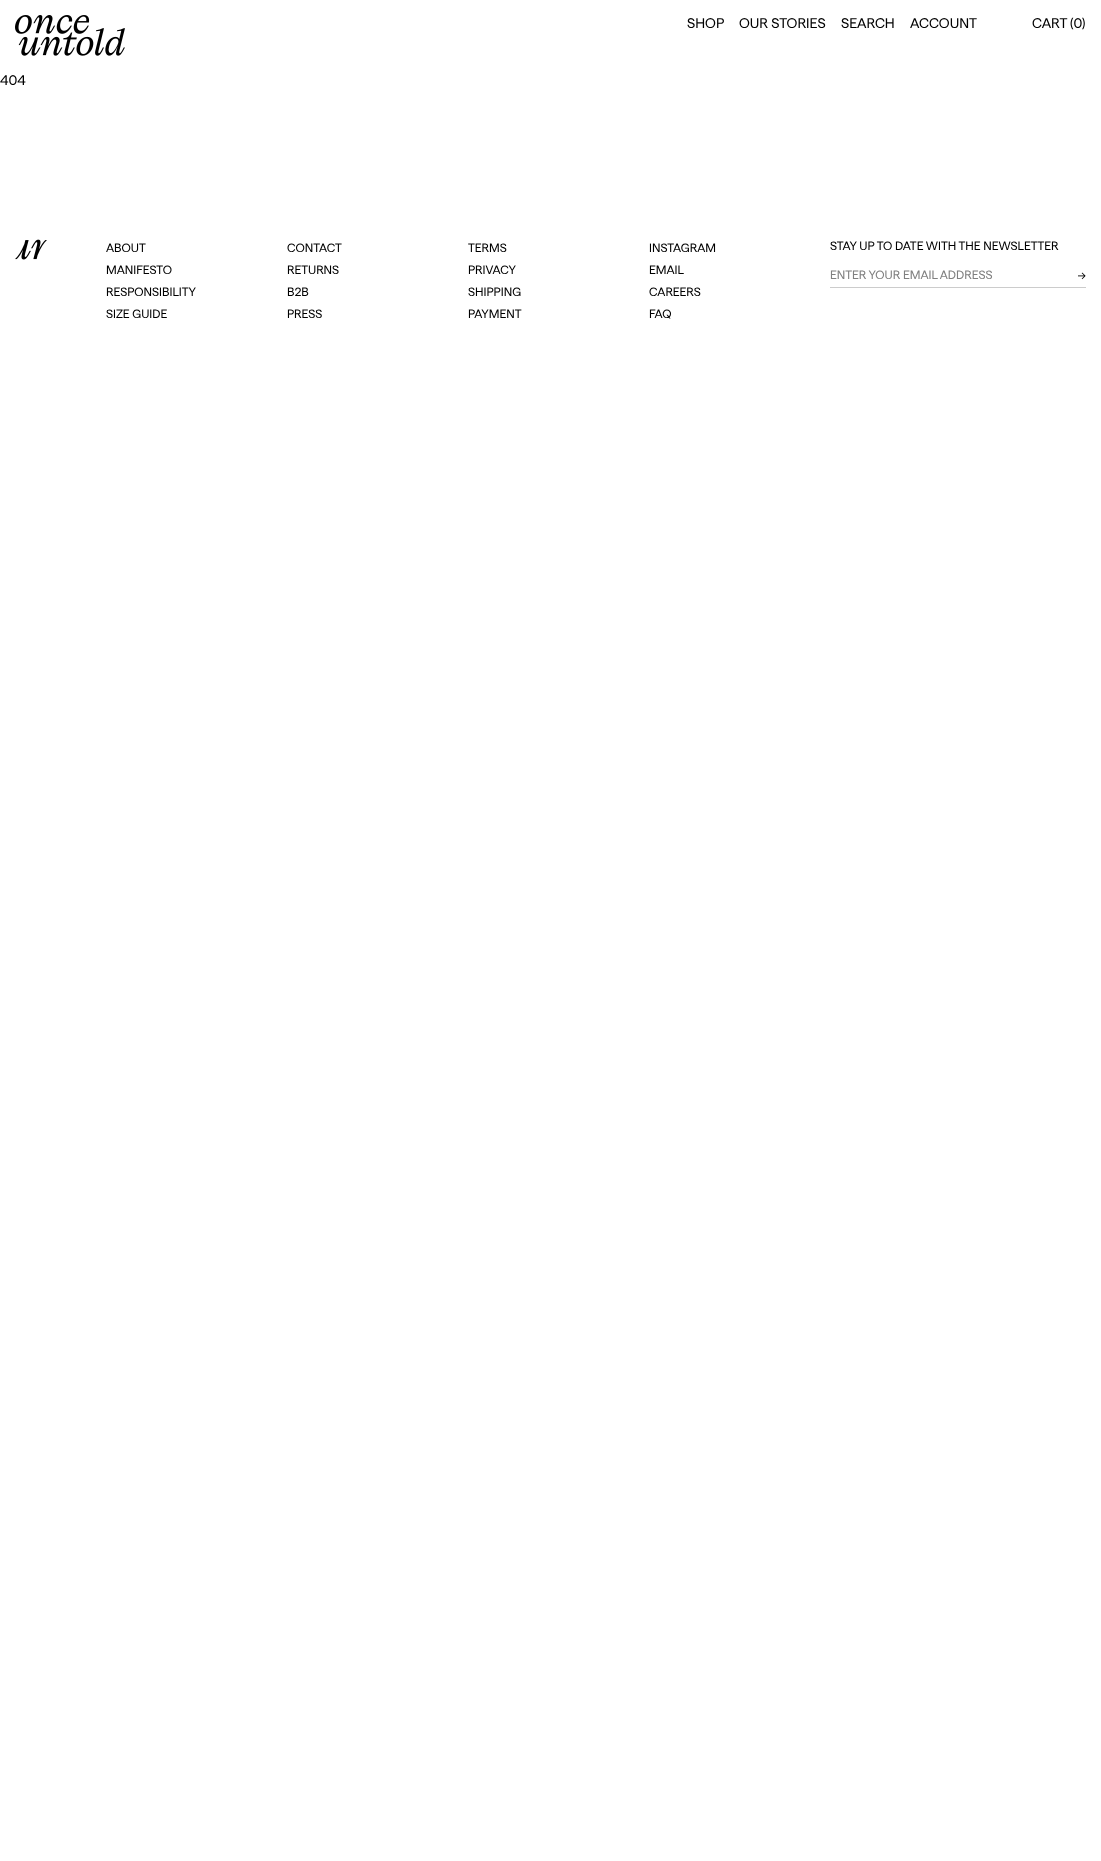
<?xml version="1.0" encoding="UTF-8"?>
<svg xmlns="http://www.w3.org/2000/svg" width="1101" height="1861">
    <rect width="100%" height="100%" fill="#FFFFFF"/>
    <image x="15" y="15" width="110" height="41" href="img_01.png"/>
    <text x="687" y="28" font-family="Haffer" font-size="14" fill="#000000">SHOP</text>
    <text x="739" y="28" font-family="Haffer" font-size="14" fill="#000000">OUR STORIES</text>
    <text x="841" y="28" font-family="Haffer" font-size="14" fill="#000000">SEARCH</text>
    <text x="910" y="28" font-family="Haffer" font-size="14" fill="#000000">ACCOUNT</text>
    <text x="1032" y="28" font-family="Haffer" font-size="14" fill="#000000">CART (0)</text>
    <text x="0" y="85" font-family="Haffer" font-size="14" fill="#000000">404</text>
    <image x="15" y="239" width="32" height="21" href="img_02.png"/>
    <text font-family="Haffer" font-size="12" fill="#000000">
        <tspan x="106" y="252">ABOUT</tspan>
        <tspan x="106" y="274">MANIFESTO</tspan>
        <tspan x="106" y="296">RESPONSIBILITY</tspan>
        <tspan x="106" y="318">SIZE GUIDE</tspan>
    </text>
    <text font-family="Haffer" font-size="12" fill="#000000">
        <tspan x="287" y="252">CONTACT</tspan>
        <tspan x="287" y="274">RETURNS</tspan>
        <tspan x="287" y="296">B2B</tspan>
        <tspan x="287" y="318">PRESS</tspan>
    </text>
    <text font-family="Haffer" font-size="12" fill="#000000">
        <tspan x="468" y="252">TERMS</tspan>
        <tspan x="468" y="274">PRIVACY</tspan>
        <tspan x="468" y="296">SHIPPING</tspan>
        <tspan x="468" y="318">PAYMENT</tspan>
    </text>
    <text font-family="Haffer" font-size="12" fill="#000000">
        <tspan x="649" y="252">INSTAGRAM</tspan>
        <tspan x="649" y="274">EMAIL</tspan>
        <tspan x="649" y="296">CAREERS</tspan>
        <tspan x="649" y="318">FAQ</tspan>
    </text>
    <text x="830" y="250" font-family="Haffer" font-size="12" fill="#000000">STAY UP TO DATE WITH THE NEWSLETTER</text>
    <rect x="830" y="287" width="256" height="1" fill="#CCCCCC"/>
    <text x="830" y="279" font-family="Haffer" font-size="12" fill="#808080">ENTER YOUR EMAIL ADDRESS</text>
    <image x="1078" y="272" width="8" height="8" href="img_03.png"/>
</svg>
